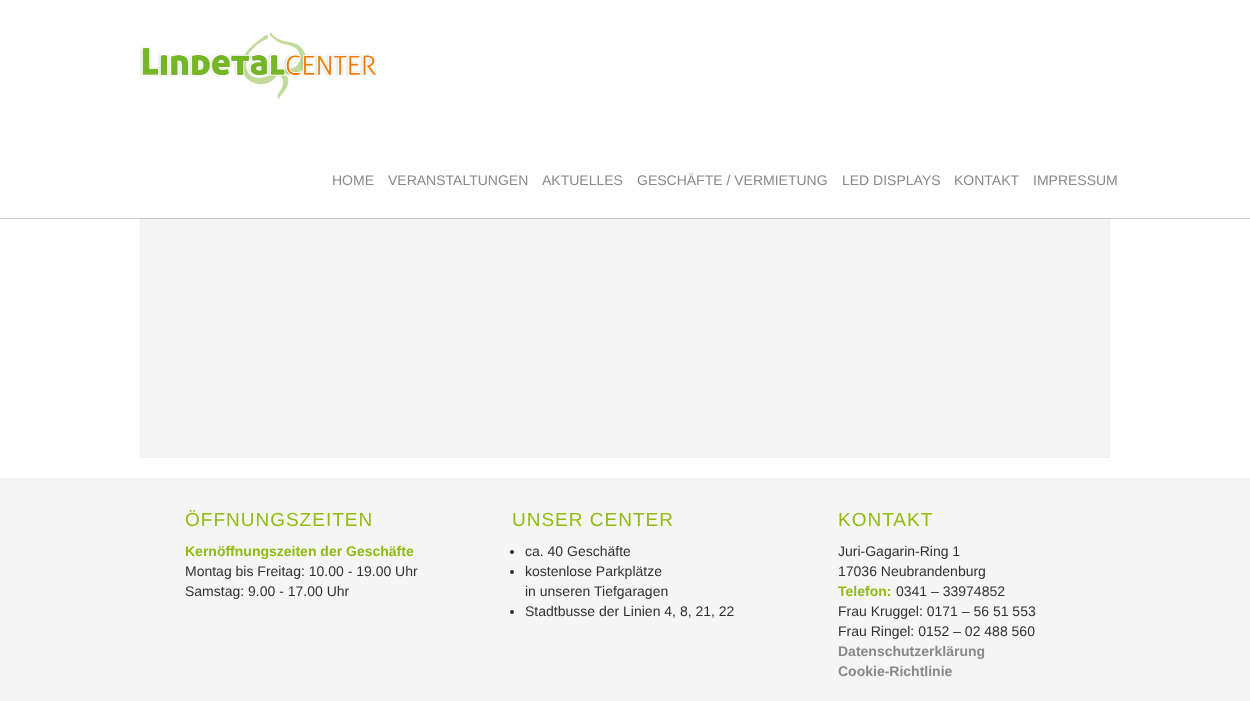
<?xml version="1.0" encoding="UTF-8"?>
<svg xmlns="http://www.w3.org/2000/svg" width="1250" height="701">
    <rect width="100%" height="100%" fill="#FFFFFF"/>
    <rect x="141" y="219" width="968" height="238" fill="#F5F5F5"/>
    <rect x="140.5" y="70.5" width="969" height="387" fill="none" stroke="#EEEEEE"/>
    <rect x="140" y="70" width="970" height="148" fill="#FFFFFF"/>
    <rect x="0" y="218" width="1250" height="1" fill="#CACACA"/>
    <image x="140" y="30" width="238" height="70" href="img_01.png"/>
    <text x="332" y="185" font-family="Liberation Sans" font-size="14" fill="#888888">HOME</text>
    <text x="388" y="185" font-family="Liberation Sans" font-size="14" fill="#888888">VERANSTALTUNGEN</text>
    <text x="542" y="185" font-family="Liberation Sans" font-size="14" fill="#888888">AKTUELLES</text>
    <text x="637" y="185" font-family="Liberation Sans" font-size="14" fill="#888888">GESCHÄFTE / VERMIETUNG</text>
    <text x="842" y="185" font-family="Liberation Sans" font-size="14" fill="#888888">LED DISPLAYS</text>
    <text x="954" y="185" font-family="Liberation Sans" font-size="14" fill="#888888">KONTAKT</text>
    <text x="1033" y="185" font-family="Liberation Sans" font-size="14" fill="#888888">IMPRESSUM</text>
    <rect x="0" y="478" width="1250" height="223" fill="#F5F5F5"/>
    <text x="185" y="526" font-family="Liberation Sans" font-size="19" letter-spacing="1" fill="#91BB12">ÖFFNUNGSZEITEN</text>
    <text x="185" y="556" font-family="Liberation Sans" font-size="14" font-weight="700" fill="#91BB12">Kernöffnungszeiten der Geschäfte</text>
    <text font-family="Liberation Sans" font-size="14" fill="#2F3132">
        <tspan x="185" y="576">Montag bis Freitag: 10.00 - 19.00 Uhr</tspan>
        <tspan x="185" y="596">Samstag: 9.00 - 17.00 Uhr</tspan>
    </text>
    <text x="512" y="526" font-family="Liberation Sans" font-size="19" letter-spacing="1" fill="#91BB12">UNSER CENTER</text>
    <circle cx="512" cy="552" r="2" fill="#2F3132"/>
    <text x="525" y="556" font-family="Liberation Sans" font-size="14" fill="#2F3132">ca. 40 Geschäfte</text>
    <circle cx="512" cy="572" r="2" fill="#2F3132"/>
    <text font-family="Liberation Sans" font-size="14" fill="#2F3132">
        <tspan x="525" y="576">kostenlose Parkplätze</tspan>
        <tspan x="525" y="596">in unseren Tiefgaragen</tspan>
    </text>
    <circle cx="512" cy="612" r="2" fill="#2F3132"/>
    <text x="525" y="616" font-family="Liberation Sans" font-size="14" fill="#2F3132">Stadtbusse der Linien 4, 8, 21, 22</text>
    <text x="838" y="526" font-family="Liberation Sans" font-size="19" letter-spacing="1" fill="#91BB12">KONTAKT</text>
    <text font-family="Liberation Sans" font-size="14" fill="#2F3132">
        <tspan x="838" y="556">Juri-Gagarin-Ring 1</tspan>
        <tspan x="838" y="576">17036 Neubrandenburg</tspan>
    </text>
    <text x="838" y="596" font-family="Liberation Sans" font-size="14" font-weight="700" fill="#91BB12">Telefon:</text>
    <text x="896" y="596" font-family="Liberation Sans" font-size="14" fill="#2F3132">0341 – 33974852</text>
    <text font-family="Liberation Sans" font-size="14" fill="#2F3132">
        <tspan x="838" y="616">Frau Kruggel: 0171 – 56 51 553</tspan>
        <tspan x="838" y="636">Frau Ringel: 0152 – 02 488 560</tspan>
    </text>
    <text font-family="Liberation Sans" font-size="14" font-weight="700" fill="#888888">
        <tspan x="838" y="656">Datenschutzerklärung</tspan>
        <tspan x="838" y="676">Cookie-Richtlinie</tspan>
    </text>
</svg>
